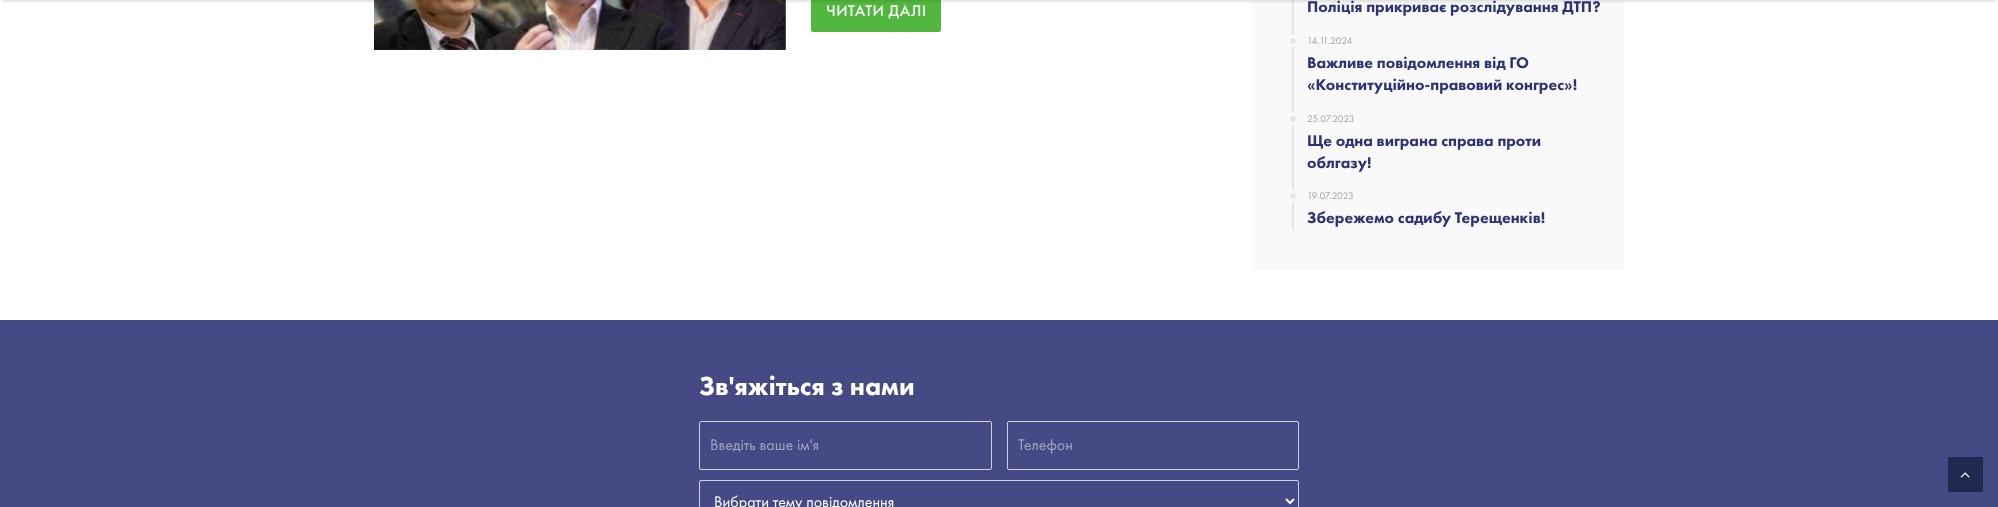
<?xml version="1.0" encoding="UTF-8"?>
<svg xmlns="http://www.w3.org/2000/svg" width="1998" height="507">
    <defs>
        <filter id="blur1" x="-50%" y="-200%" width="200%" height="500%"><feGaussianBlur stdDeviation="1"/></filter>
    </defs>
    <rect width="100%" height="100%" fill="#FFFFFF"/>
    <image x="374" y="0" width="412" height="50" href="img_01.png"/>
    <rect x="811" y="-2" width="130" height="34" rx="2" fill="#52B73E"/>
    <rect x="1252" y="0" width="372" height="270" fill="#F9F9F9"/>
    <rect x="1292" y="0" width="2" height="230" fill="#E6E6E6"/>
    <rect x="2" y="-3" width="1994" height="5" fill="#000000" fill-opacity="0.1" filter="url(#blur1)"/>
    <text x="826" y="16" font-family="Futura PT" font-size="16" font-weight="500" letter-spacing="0.5" fill="#FFFFFF">ЧИТАТИ ДАЛІ</text>
    <text x="1307" y="12" font-family="Futura PT" font-size="16" font-weight="900" fill="#2D3274">Поліція прикриває розслідування ДТП?</text>
    <circle cx="1293" cy="41" r="6" fill="#E6E6E6"/>
    <circle cx="1293" cy="41" r="4.5" fill="none" stroke="#FFFFFF" stroke-opacity="0.8" stroke-width="3"/>
    <text x="1307" y="44" font-family="Futura PT" font-size="10" fill="#A2A2A2">14.11.2024</text>
    <text font-family="Futura PT" font-size="16" font-weight="900" fill="#2D3274">
        <tspan x="1307" y="68">Важливе повідомлення від ГО</tspan>
        <tspan x="1307" y="90">«Конституційно-правовий конгрес»!</tspan>
    </text>
    <circle cx="1293" cy="119" r="6" fill="#E6E6E6"/>
    <circle cx="1293" cy="119" r="4.5" fill="none" stroke="#FFFFFF" stroke-opacity="0.8" stroke-width="3"/>
    <text x="1307" y="122" font-family="Futura PT" font-size="10" fill="#A2A2A2">25.07.2023</text>
    <text font-family="Futura PT" font-size="16" font-weight="900" fill="#2D3274">
        <tspan x="1307" y="146">Ще одна виграна справа проти</tspan>
        <tspan x="1307" y="168">облгазу!</tspan>
    </text>
    <circle cx="1293" cy="196" r="6" fill="#E6E6E6"/>
    <circle cx="1293" cy="196" r="4.5" fill="none" stroke="#FFFFFF" stroke-opacity="0.8" stroke-width="3"/>
    <text x="1307" y="199" font-family="Futura PT" font-size="10" fill="#A2A2A2">19.07.2023</text>
    <text x="1307" y="223" font-family="Futura PT" font-size="16" font-weight="900" fill="#2D3274">Збережемо садибу Терещенків!</text>
    <rect x="0" y="320" width="1998" height="187" fill="#454984"/>
    <text x="699" y="395" font-family="Futura PT" font-size="27" font-weight="900" fill="#FFFFFF">Зв'яжіться з нами</text>
    <rect x="699.5" y="421.5" width="292" height="48" rx="1.5" fill="none" stroke="#D1D2E0"/>
    <text x="710" y="450" font-family="Futura PT" font-size="16" fill="#A2A4C2">Введіть ваше ім'я</text>
    <rect x="1007.5" y="421.5" width="291" height="48" rx="1.5" fill="none" stroke="#D1D2E0"/>
    <text x="1018" y="450" font-family="Futura PT" font-size="16" fill="#A2A4C2">Телефон</text>
    <rect x="699.5" y="480.5" width="599" height="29" rx="1.5" fill="none" stroke="#D1D2E0"/>
    <path d="M 1286 499 L 1290 503 L 1294 499" fill="none" stroke="#FFFFFF" stroke-width="2"/>
    <text x="714" y="507" font-family="Futura PT" font-size="16" fill="#FFFFFF">Вибрати тему повідомлення</text>
    <rect x="1948" y="457" width="35" height="35" fill="#1F2A50"/>
    <image x="1960" y="472" width="10" height="6" href="img_02.png"/>
</svg>
